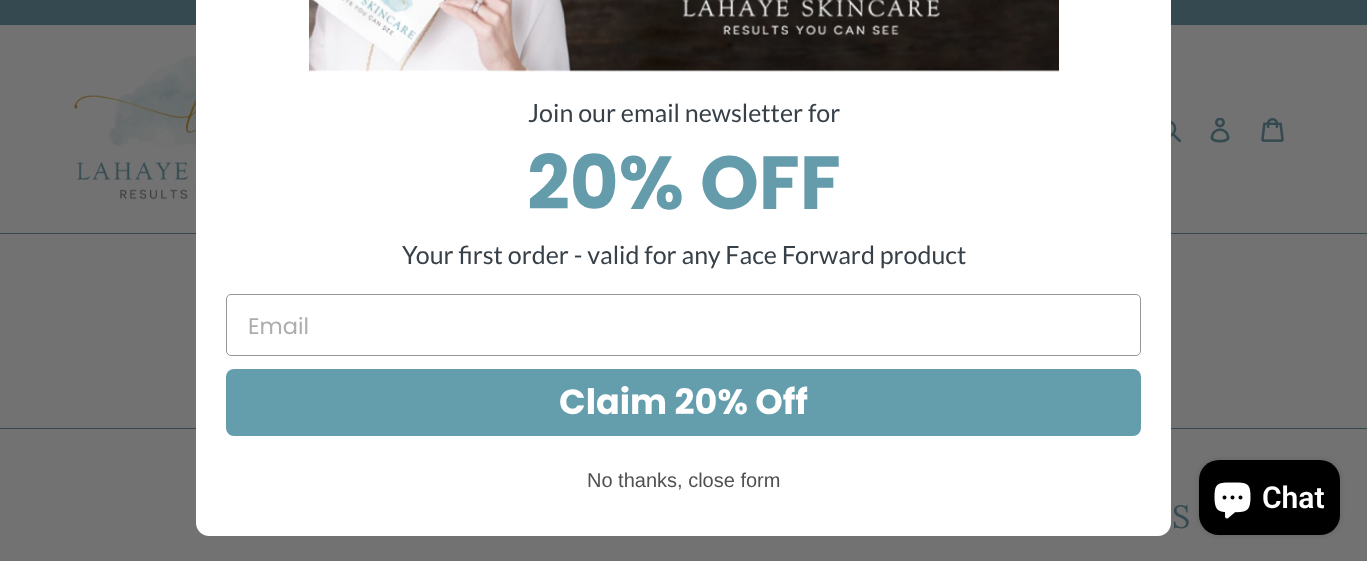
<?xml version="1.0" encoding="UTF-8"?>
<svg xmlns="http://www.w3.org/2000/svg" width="1367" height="561">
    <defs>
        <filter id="blur1" x="-50%" y="-200%" width="200%" height="500%"><feGaussianBlur stdDeviation="3"/></filter>
    </defs>
    <rect width="100%" height="100%" fill="#727272"/>
    <rect x="0" y="0" width="1367" height="25" fill="#344A50"/>
    <rect x="0" y="233" width="1367" height="1" fill="#344A50"/>
    <image x="74" y="56" width="122" height="144" href="img_01.png"/>
    <image x="1171" y="120" width="10" height="23" href="img_02.png"/>
    <image x="1210" y="118" width="20" height="25" href="img_03.png"/>
    <image x="1261" y="118" width="23" height="24" href="img_04.png"/>
    <rect x="0" y="428" width="1367" height="1" fill="#344A50"/>
    <path d="M 196 0 H 1171 V 523 C 1171 530 1165 536 1158 536 H 209 C 202 536 196 530 196 523 Z" fill="#FFFFFF"/>
    <image x="309" y="0" width="750" height="72" href="img_05.png"/>
    <text x="528" y="122" font-family="Lato" font-size="25" fill="#373F47">Join our email newsletter for</text>
    <text x="527" y="209" font-family="Poppins" font-size="75" font-weight="700" fill="#649CAB">20% OFF</text>
    <text x="402" y="264" font-family="Lato" font-size="25" fill="#373F47">Your first order - valid for any Face Forward product</text>
    <rect x="226.5" y="294.5" width="914" height="61" rx="4.5" fill="none" stroke="#949596"/>
    <text x="248" y="334" font-family="Poppins" font-size="22.5" fill="#ADADAD">Email</text>
    <rect x="226" y="369" width="915" height="67" rx="8" fill="#649EAC"/>
    <text x="559" y="414" font-family="Poppins" font-size="35" font-weight="700" fill="#FFFFFF">Claim 20% Off</text>
    <text x="587" y="487" font-family="Liberation Sans" font-size="20" fill="#505050">No thanks, close form</text>
    <rect x="1199" y="460" width="141" height="75" rx="20" fill="#000000" fill-opacity="0.15" filter="url(#blur1)"/>
    <rect x="1199" y="460" width="141" height="75" rx="20" fill="#000000"/>
    <image x="1214" y="482" width="37" height="37" href="img_06.png"/>
    <text x="1262" y="508" font-family="Roboto" font-size="30" font-weight="600" fill="#FFFFFF">Chat</text>
    <text x="1172" y="528" font-family="Lora" font-size="32" fill="#344A50">S</text>
</svg>
